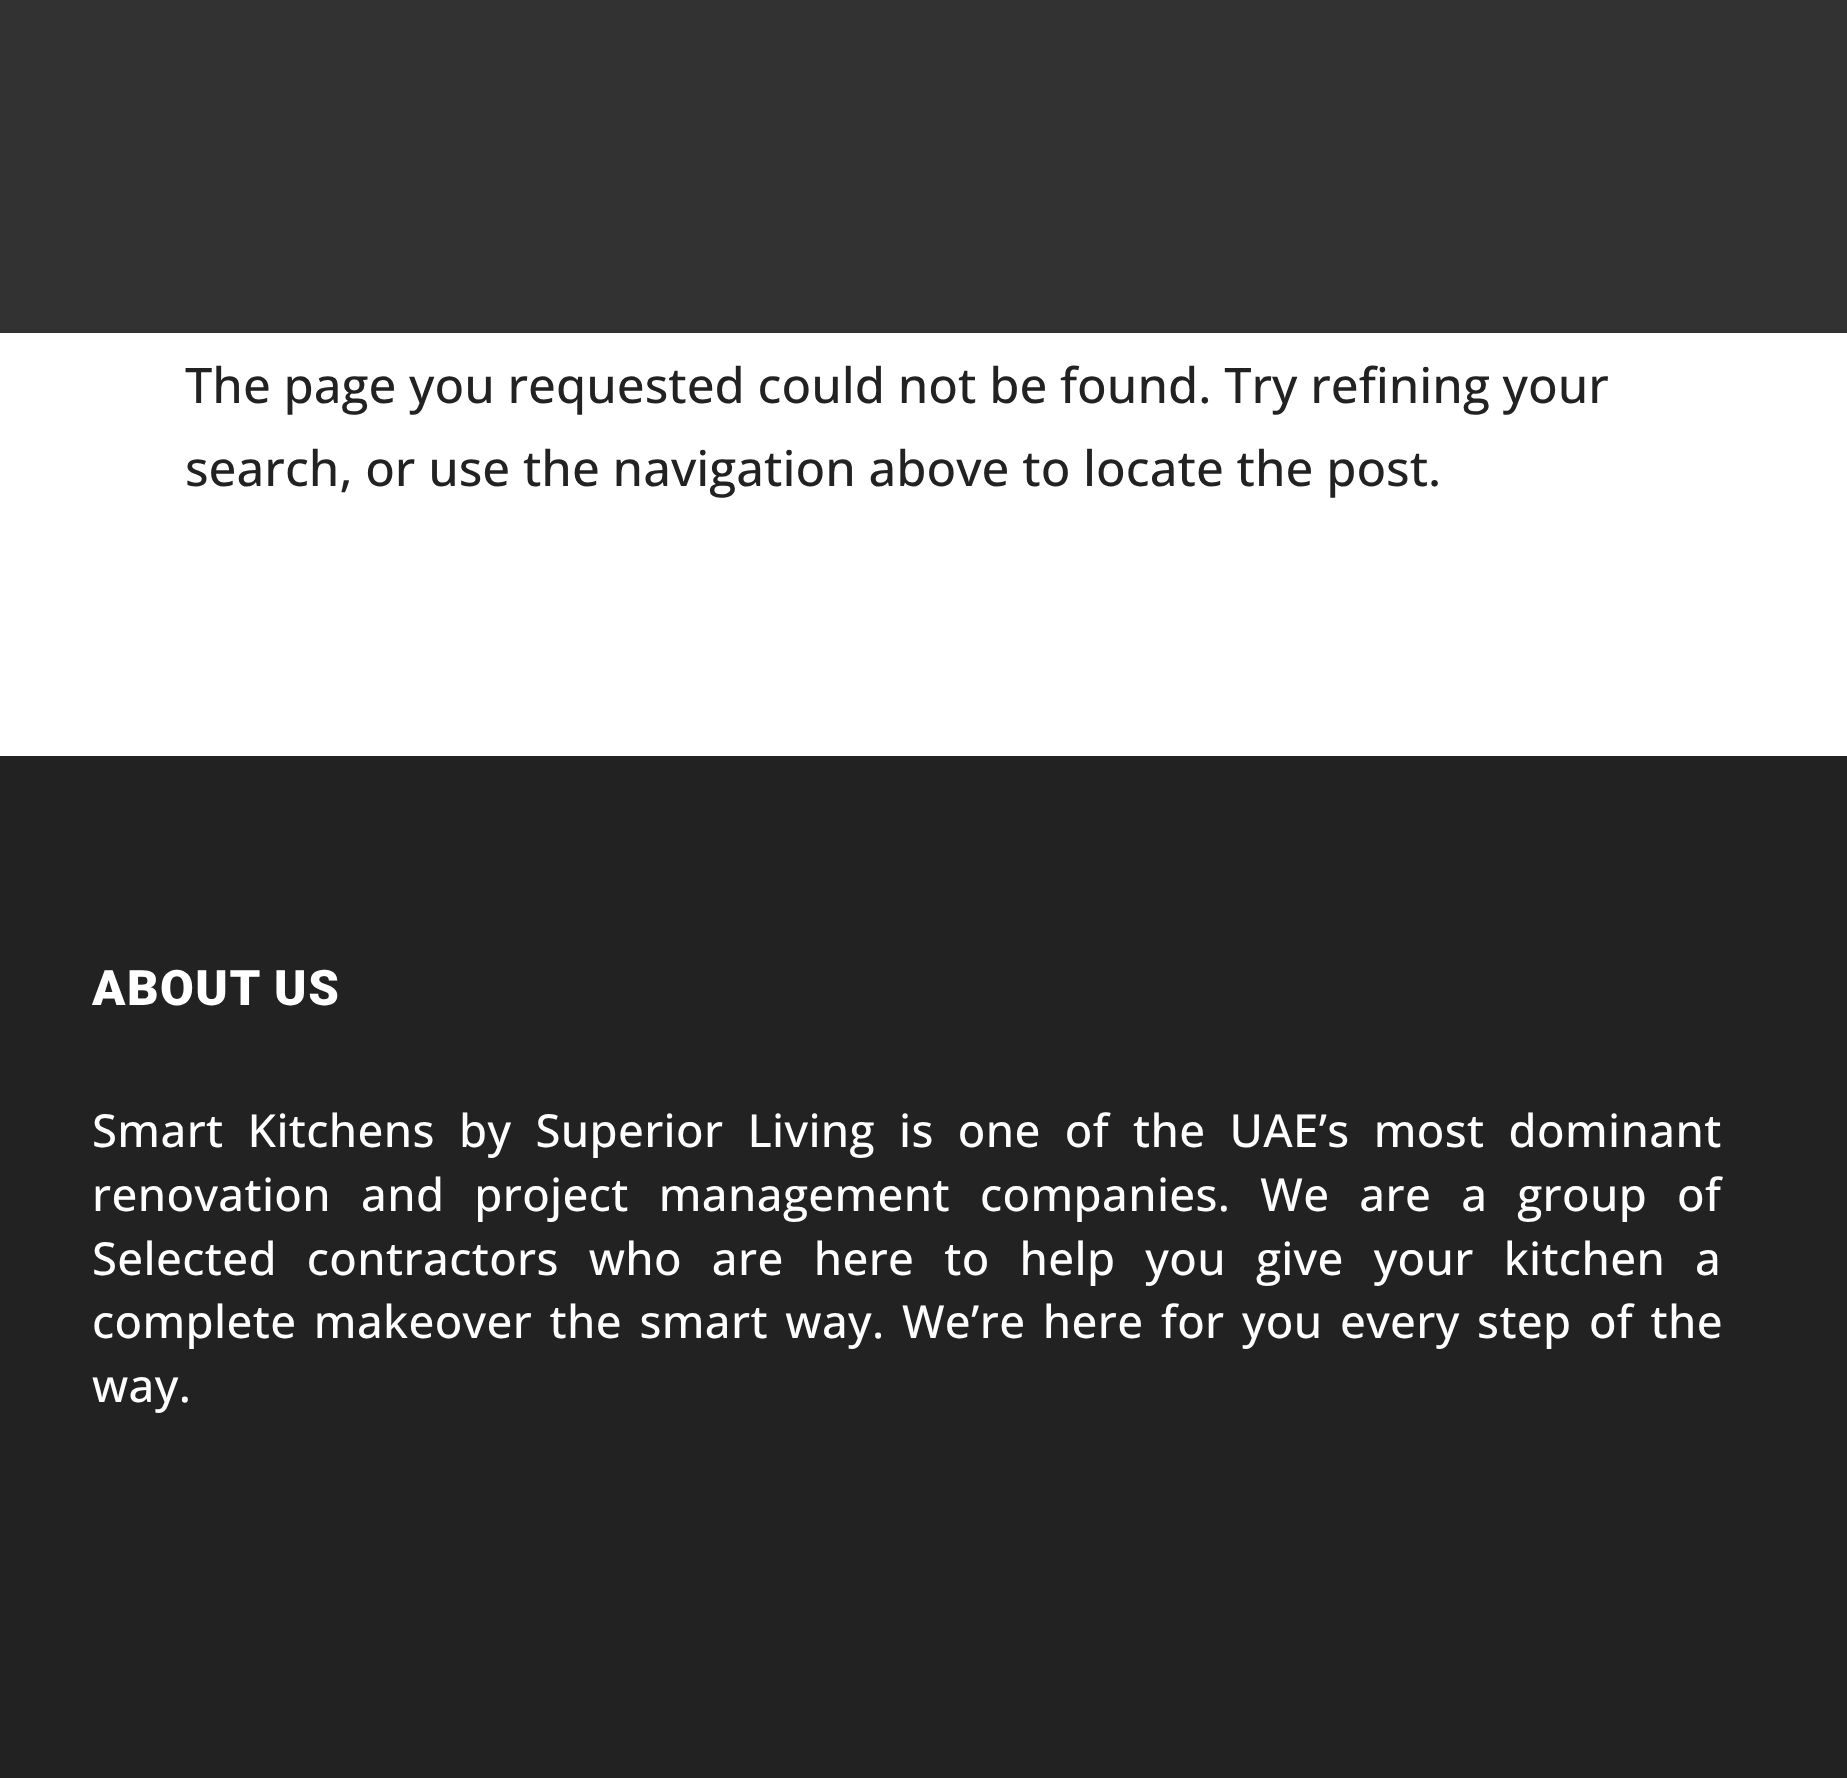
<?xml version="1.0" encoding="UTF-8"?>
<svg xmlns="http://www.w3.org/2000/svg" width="1847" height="1778">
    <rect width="100%" height="100%" fill="#FFFFFF"/>
    <rect x="0" y="0" width="1847" height="333" fill="#323232"/>
    <text font-family="Open Sans" font-size="49" font-weight="500" fill="#222222">
        <tspan x="185" y="403">The page you requested could not be found. Try refining your</tspan>
        <tspan x="185" y="486">search, or use the navigation above to locate the post.</tspan>
    </text>
    <rect x="0" y="756" width="1847" height="1022" fill="#222222"/>
    <text x="92" y="1005" font-family="Roboto" font-size="49" font-weight="900" letter-spacing="1.5" fill="#FFFFFF">ABOUT US</text>
    <text font-family="Open Sans" font-size="45.5" font-weight="500" letter-spacing="0.35" fill="#FFFFFF">
        <tspan x="92" y="1147" word-spacing="11.9">Smart Kitchens by Superior Living is one of the UAE’s most dominant</tspan>
        <tspan x="92" y="1211" word-spacing="17.75">renovation and project management companies. We are a group of</tspan>
        <tspan x="92" y="1275" word-spacing="17.75">Selected contractors who are here to help you give your kitchen a</tspan>
        <tspan x="92" y="1338" word-spacing="5.25">complete makeover the smart way. We’re here for you every step of the</tspan>
        <tspan x="92" y="1402">way.</tspan>
    </text>
</svg>
